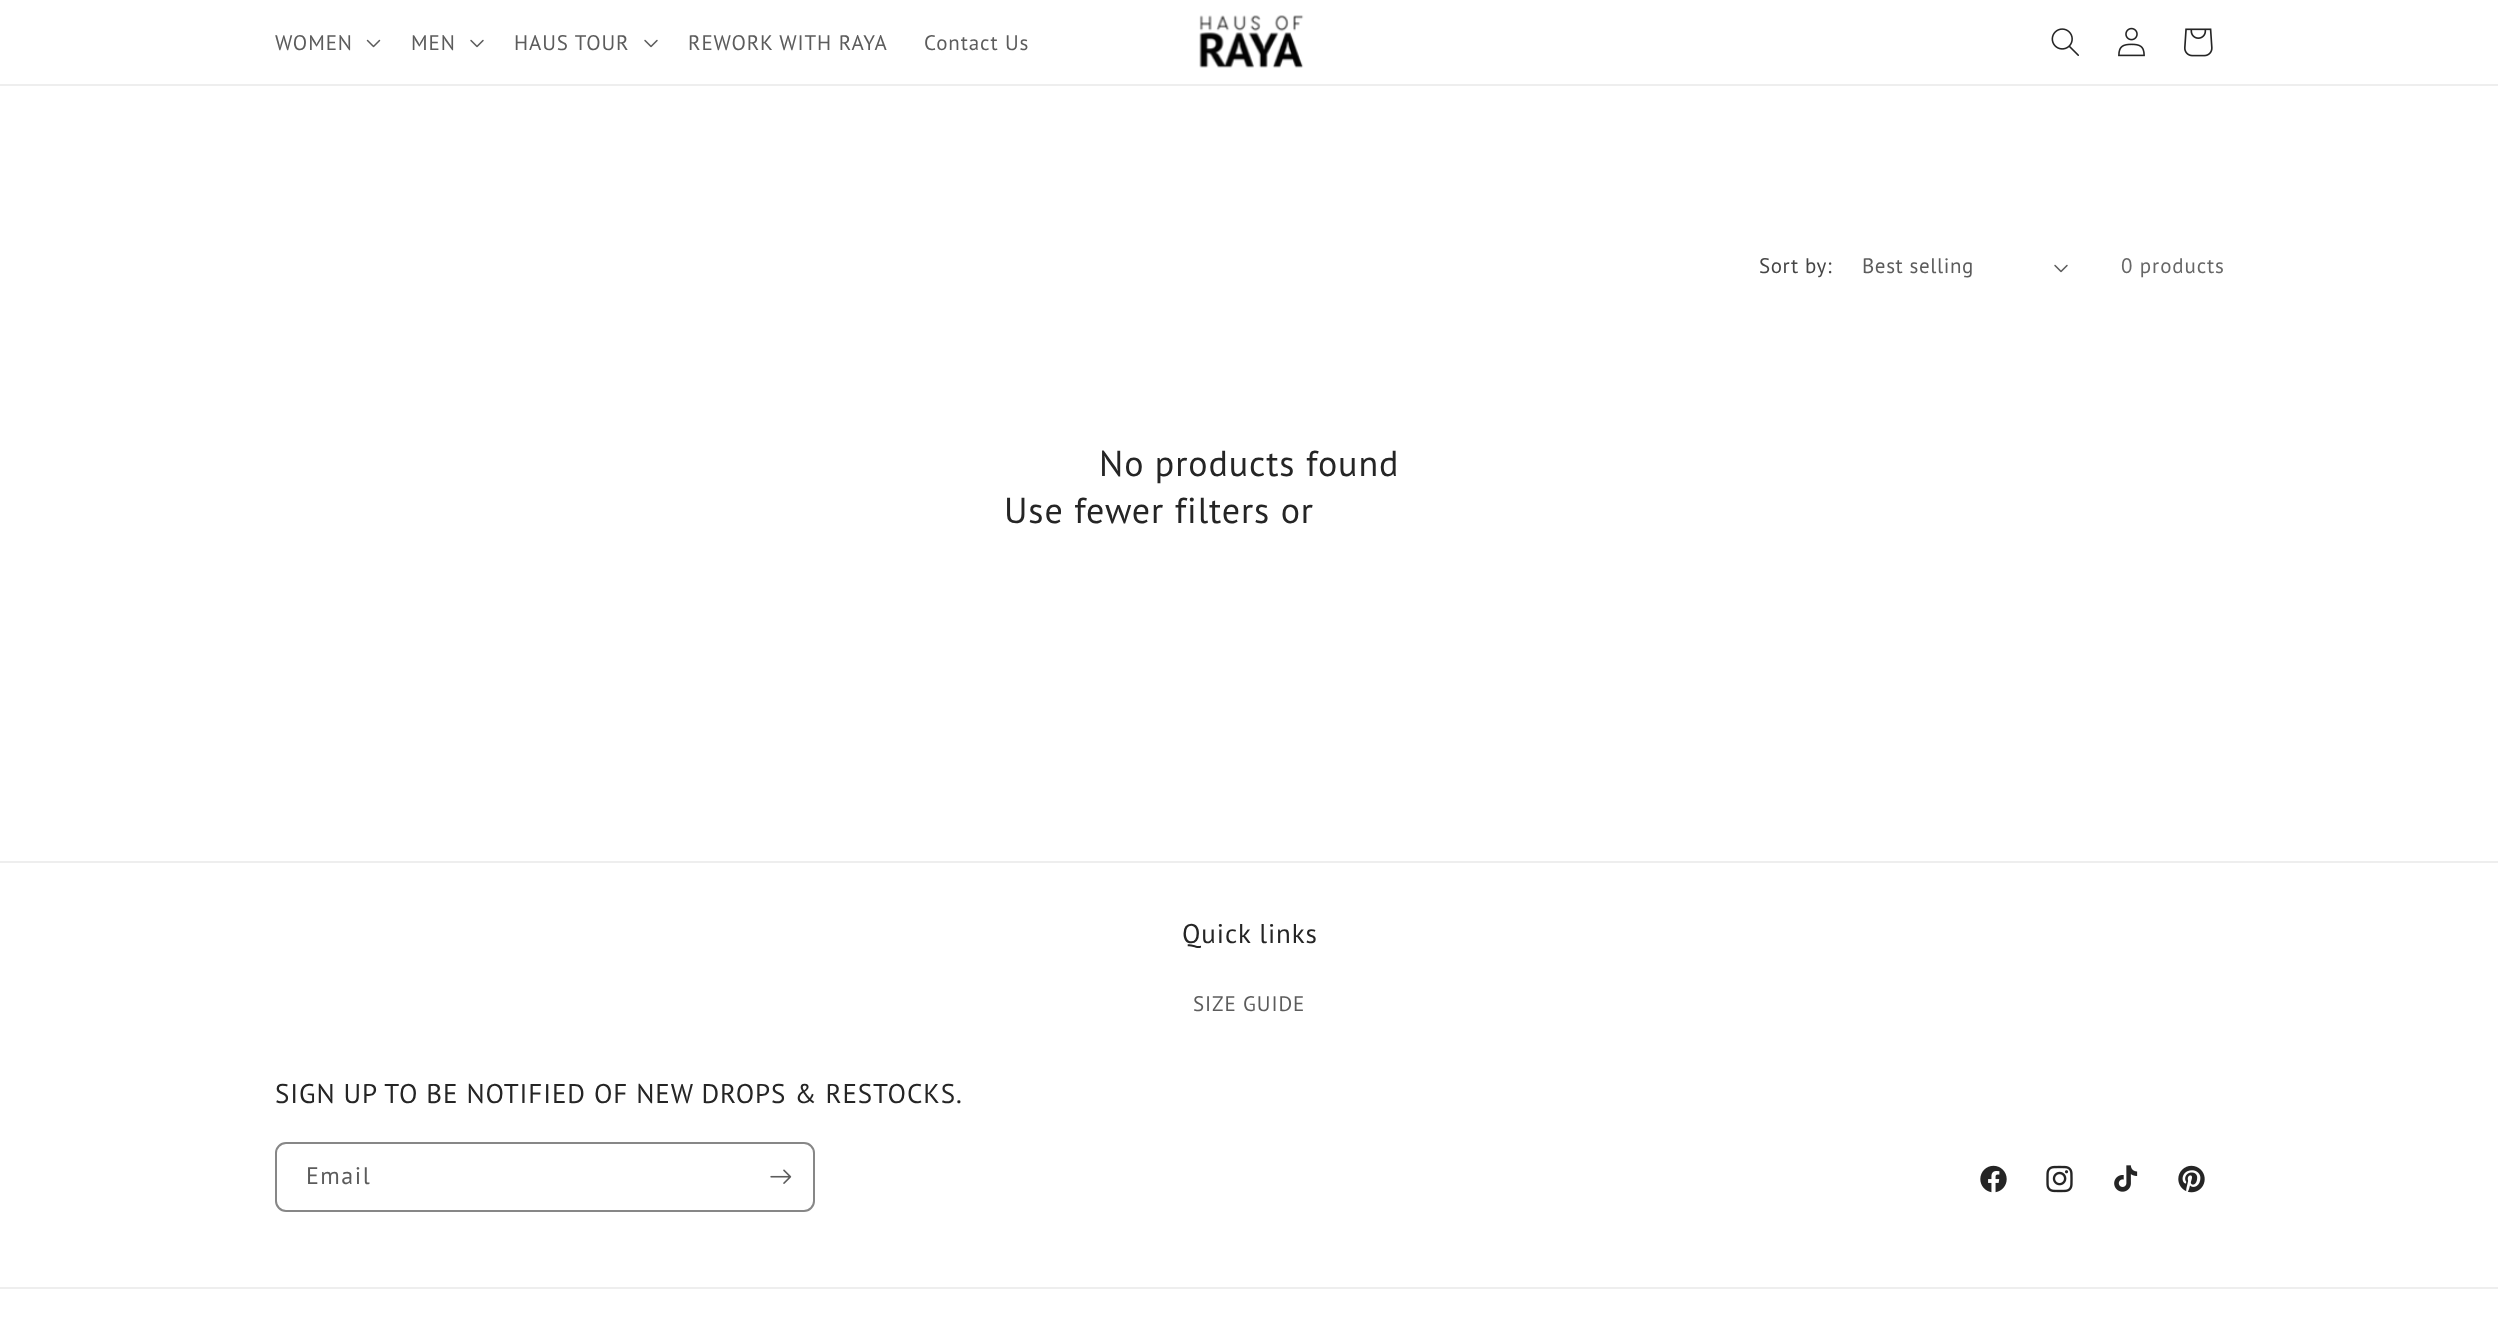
<?xml version="1.0" encoding="UTF-8"?>
<svg xmlns="http://www.w3.org/2000/svg" width="2498" height="1336">
    <rect width="100%" height="100%" fill="#FFFFFF"/>
    <rect x="0" y="84" width="2498" height="2" fill="#EEEEEE"/>
    <text x="275" y="50" font-family="PT Sans" font-size="21" letter-spacing="0.9" fill="#5C5C5C">WOMEN</text>
    <image x="366" y="39" width="15" height="9" href="img_01.png"/>
    <text x="411" y="50" font-family="PT Sans" font-size="21" letter-spacing="0.9" fill="#5C5C5C">MEN</text>
    <image x="470" y="39" width="14" height="9" href="img_02.png"/>
    <text x="514" y="50" font-family="PT Sans" font-size="21" letter-spacing="0.9" fill="#5C5C5C">HAUS TOUR</text>
    <image x="644" y="39" width="14" height="9" href="img_02.png"/>
    <text x="688" y="50" font-family="PT Sans" font-size="21" letter-spacing="0.9" fill="#5C5C5C">REWORK WITH RAYA</text>
    <text x="924" y="50" font-family="PT Sans" font-size="21" letter-spacing="0.9" fill="#5C5C5C">Contact Us</text>
    <image x="1199" y="15" width="105" height="53" href="img_03.png"/>
    <image x="2051" y="28" width="28" height="28" href="img_04.png"/>
    <image x="2118" y="27" width="27" height="30" href="img_05.png"/>
    <image x="2184" y="28" width="29" height="29" href="img_06.png"/>
    <text x="1759" y="273" font-family="PT Sans" font-size="21" letter-spacing="0.6" fill="#464646">Sort by:</text>
    <text x="1862" y="273" font-family="PT Sans" font-size="21" letter-spacing="0.6" fill="#5C5C5C">Best selling</text>
    <image x="2054" y="264" width="14" height="9" href="img_02.png"/>
    <text x="2121" y="273" font-family="PT Sans" font-size="21" letter-spacing="0.9" fill="#666666">0 products</text>
    <text x="1099" y="476" font-family="PT Sans" font-size="36" letter-spacing="0.9" fill="#252525">No products found</text>
    <text x="1004" y="523" font-family="PT Sans" font-size="36" letter-spacing="0.9" fill="#252525">Use fewer filters or</text>
    <rect x="0" y="861" width="2498" height="2" fill="#EEEEEE"/>
    <text x="1182" y="943" font-family="PT Sans" font-size="27" letter-spacing="0.9" fill="#252525">Quick links</text>
    <text x="1193" y="1011" font-family="PT Sans" font-size="21" letter-spacing="0.9" fill="#5C5C5C">SIZE GUIDE</text>
    <text x="275" y="1103" font-family="PT Sans" font-size="27" letter-spacing="0.9" fill="#252525">SIGN UP TO BE NOTIFIED OF NEW DROPS &amp; RESTOCKS.</text>
    <rect x="276" y="1143" width="538" height="68" rx="10" fill="none" stroke="#878787" stroke-width="2"/>
    <text x="306" y="1184" font-family="PT Sans" font-size="24" letter-spacing="1.5" fill="#5C5C5C">Email</text>
    <image x="770" y="1169" width="22" height="15" href="img_07.png"/>
    <image x="1980" y="1165" width="27" height="28" href="img_08.png"/>
    <image x="2046" y="1165" width="27" height="28" href="img_09.png"/>
    <image x="2114" y="1165" width="24" height="27" href="img_10.png"/>
    <image x="2178" y="1165" width="27" height="28" href="img_11.png"/>
    <rect x="0" y="1287" width="2498" height="2" fill="#EEEEEE"/>
</svg>
